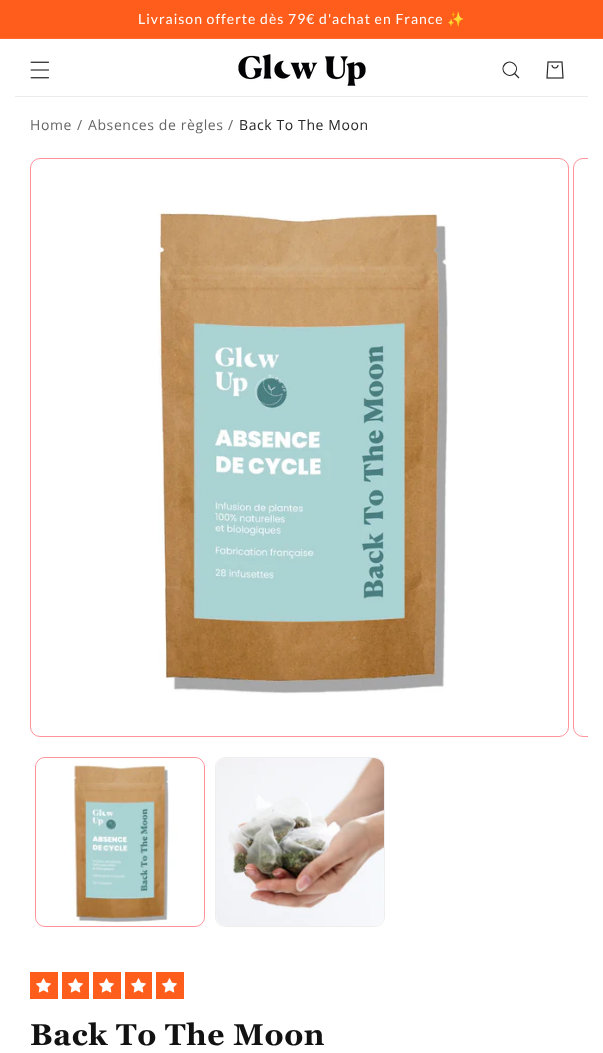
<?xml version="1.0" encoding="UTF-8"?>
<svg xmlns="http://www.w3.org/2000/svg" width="603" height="1053">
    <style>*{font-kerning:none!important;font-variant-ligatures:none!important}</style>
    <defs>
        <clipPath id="clip1"><rect x="15" y="153" width="573" height="589"/></clipPath>
    </defs>
    <rect width="100%" height="100%" fill="#FFFFFF"/>
    <rect x="0" y="0" width="603" height="38" fill="#FE5D1B"/>
    <rect x="0" y="38" width="603" height="1" fill="#FE6A2D"/>
    <text x="138" y="24" font-family="Lato" font-size="14" letter-spacing="1" fill="#FFFFFF">Livraison offerte dès 79€ d'achat en France</text>
    <text x="447" y="24" font-family="Noto Color Emoji" font-size="14" letter-spacing="1" fill="#FFFFFF">✨</text>
    <rect x="15" y="96" width="573" height="1" fill="#ECECEC"/>
    <image x="30" y="61" width="20" height="18" href="img_01.png"/>
    <image x="238" y="54" width="128" height="32" href="img_02.png"/>
    <path d="M 514.5 73.5 C 520.5 67 511.5 58 505 64 C 499 70.5 508 79.5 514.5 73.5 Z M 514.5 73.5 L 519 78" fill="none" stroke="#282828" stroke-width="1.2"/>
    <image x="546" y="61" width="18" height="18" href="img_03.png"/>
    <text x="30" y="130" font-family="Open Sans" font-size="14" letter-spacing="0.6" fill="#666666">Home</text>
    <text x="77" y="130" font-family="Open Sans" font-size="14" letter-spacing="0.6" fill="#666666">/</text>
    <text x="88" y="130" font-family="Open Sans" font-size="14" letter-spacing="0.6" fill="#666666">Absences de règles</text>
    <text x="228" y="130" font-family="Open Sans" font-size="14" letter-spacing="0.6" fill="#666666">/</text>
    <text x="239" y="130" font-family="Open Sans" font-size="14" letter-spacing="0.6" fill="#252525">Back To The Moon</text>
    <rect x="30.5" y="158.5" width="538" height="578" rx="9.5" fill="none" stroke="#FF929B"/>
    <image x="158" y="210" width="290" height="485" href="img_04.png"/>
    <g clip-path="url(#clip1)">
        <rect x="573.5" y="158.5" width="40" height="578" rx="9.5" fill="none" stroke="#FF929B"/>
    </g>
    <rect x="35.5" y="757.5" width="169" height="169" rx="9.5" fill="none" stroke="#FF929B"/>
    <image x="36" y="758" width="168" height="168" href="img_05.png"/>
    <rect x="215.5" y="757.5" width="169" height="169" rx="9.5" fill="none" stroke="#EEEEEE"/>
    <image x="216" y="758" width="168" height="168" href="img_06.png"/>
    <rect x="30" y="972" width="28" height="27" fill="#FE5D1B"/>
    <image x="36" y="978" width="15" height="15" href="img_07.png"/>
    <rect x="62" y="972" width="27" height="27" fill="#FE5D1B"/>
    <image x="68" y="978" width="15" height="15" href="img_07.png"/>
    <rect x="93" y="972" width="28" height="27" fill="#FE5D1B"/>
    <image x="99" y="978" width="15" height="15" href="img_07.png"/>
    <rect x="125" y="972" width="27" height="27" fill="#FE5D1B"/>
    <image x="131" y="978" width="15" height="15" href="img_07.png"/>
    <rect x="156" y="972" width="28" height="27" fill="#FE5D1B"/>
    <image x="162" y="978" width="15" height="15" href="img_07.png"/>
    <text x="30" y="1045" font-family="Georgia" font-size="30" font-weight="700" letter-spacing="0.6" fill="#121212">Back To The Moon</text>
</svg>
